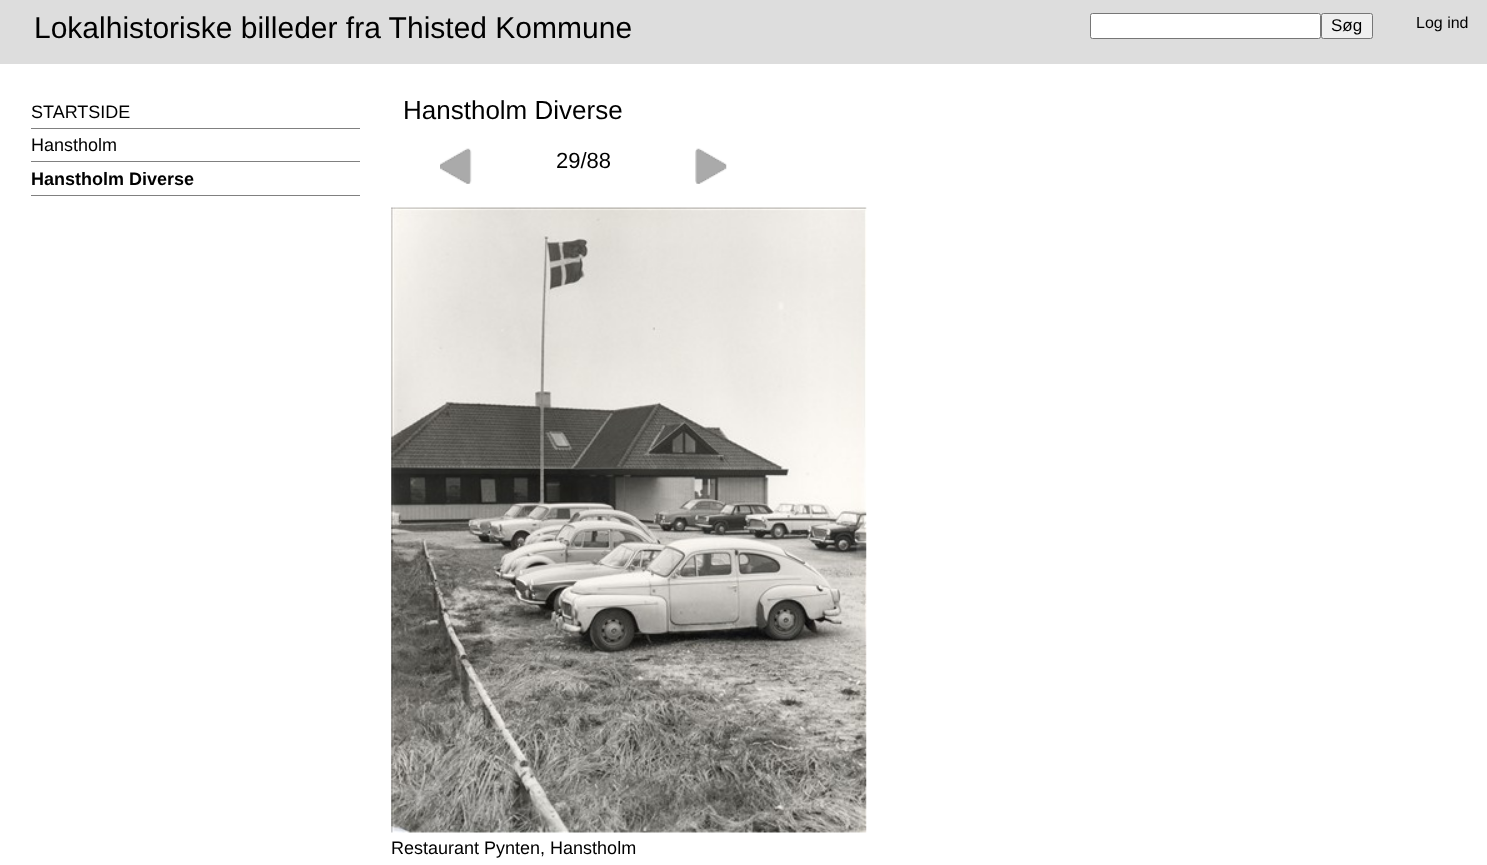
<?xml version="1.0" encoding="UTF-8"?>
<svg xmlns="http://www.w3.org/2000/svg" width="1487" height="865">
    <rect width="100%" height="100%" fill="#FFFFFF"/>
    <rect x="0" y="0" width="1487" height="64" fill="#DDDDDD"/>
    <text x="34" y="38" font-family="Liberation Sans" font-size="30" fill="#000000">Lokalhistoriske billeder fra Thisted Kommune</text>
    <rect x="1090.5" y="13.5" width="230" height="25" rx="2" fill="#FFFFFF" stroke="#767676"/>
    <rect x="1321.5" y="13.5" width="51" height="25" rx="2" fill="#EFEFEF" stroke="#767676"/>
    <text x="1331" y="31" font-family="Liberation Sans" font-size="17" fill="#000000">Søg</text>
    <text x="1416" y="28" font-family="Liberation Sans" font-size="16" fill="#000000">Log ind</text>
    <rect x="31" y="128" width="329" height="1" fill="#808080"/>
    <text x="31" y="118" font-family="Liberation Sans" font-size="18" fill="#000000">STARTSIDE</text>
    <rect x="31" y="161" width="329" height="1" fill="#808080"/>
    <text x="31" y="151" font-family="Liberation Sans" font-size="18" fill="#000000">Hanstholm</text>
    <rect x="31" y="195" width="329" height="1" fill="#808080"/>
    <text x="31" y="185" font-family="Liberation Sans" font-size="18" font-weight="700" fill="#000000">Hanstholm Diverse</text>
    <text x="403" y="119" font-family="Liberation Sans" font-size="26" fill="#000000">Hanstholm Diverse</text>
    <image x="440" y="148" width="32" height="36" href="img_01.png"/>
    <text x="556" y="168" font-family="Liberation Sans" font-size="22" fill="#000000">29/88</text>
    <image x="695" y="148" width="32" height="36" href="img_02.png"/>
    <image x="391" y="207" width="476" height="626" href="img_03.png"/>
    <text x="391" y="854" font-family="Liberation Sans" font-size="18" fill="#000000">Restaurant Pynten, Hanstholm</text>
</svg>
